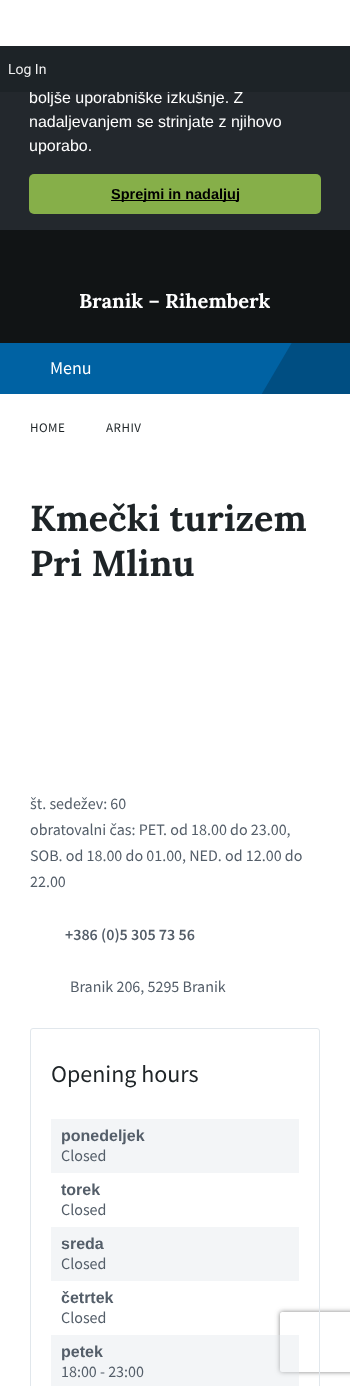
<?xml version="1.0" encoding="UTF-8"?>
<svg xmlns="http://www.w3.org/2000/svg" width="350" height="1386">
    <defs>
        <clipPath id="clip1"><rect x="0" y="343" width="350" height="51"/></clipPath>
        <clipPath id="clip2"><path d="M 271 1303 H 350 V 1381 H 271 Z M 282 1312 H 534 C 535 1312 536 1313 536 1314 V 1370 C 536 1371 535 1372 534 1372 H 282 C 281 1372 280 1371 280 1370 V 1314 C 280 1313 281 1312 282 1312 Z" clip-rule="evenodd"/></clipPath>
        <filter id="blur1" x="-50%" y="-200%" width="200%" height="500%"><feGaussianBlur stdDeviation="2.5"/></filter>
    </defs>
    <rect width="100%" height="100%" fill="#FFFFFF"/>
    <rect x="0" y="92" width="350" height="138" fill="#23282D"/>
    <text x="29" y="103" font-family="Liberation Sans" font-size="16" fill="#FFFFFF">boljše uporabniške izkušnje. Z</text>
    <rect x="0" y="46" width="350" height="46" fill="#1D2327"/>
    <text x="8" y="74" font-family="Roboto" font-size="14" fill="#F0F0F1">Log In</text>
    <text font-family="Liberation Sans" font-size="16" fill="#FFFFFF">
        <tspan x="29" y="127">nadaljevanjem se strinjate z njihovo</tspan>
        <tspan x="29" y="151">uporabo.</tspan>
    </text>
    <rect x="29" y="174" width="292" height="40" rx="5" fill="#86AF49"/>
    <rect x="111" y="200" width="128" height="1" fill="#000000"/>
    <text x="111" y="199" font-family="Liberation Sans" font-size="14.5" font-weight="700" fill="#000000">Sprejmi in nadaljuj</text>
    <rect x="0" y="230" width="350" height="113" fill="#111415"/>
    <text x="79" y="308" font-family="Lora" font-size="20" font-weight="700" fill="#FFFFFF">Branik – Rihemberk</text>
    <rect x="0" y="343" width="292" height="51" fill="#0062A3"/>
    <text x="50" y="374" font-family="Source Sans Pro" font-size="18" fill="#FFFFFF">Menu</text>
    <g clip-path="url(#clip1)">
        <path d="M 311 310 L 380 350 L 329 437 L 260 397 Z" fill="#004E82"/>
    </g>
    <text x="30" y="432" font-family="Source Sans Pro" font-size="13" letter-spacing="0.5" fill="#1E2427">HOME</text>
    <text x="106" y="432" font-family="Source Sans Pro" font-size="13" letter-spacing="0.5" fill="#1E2427">ARHIV</text>
    <text font-family="Lora" font-size="36" font-weight="700" fill="#1E2427">
        <tspan x="30" y="531">Kmečki turizem</tspan>
        <tspan x="30" y="576">Pri Mlinu</tspan>
    </text>
    <text font-family="Source Sans Pro" font-size="16" fill="#545E69">
        <tspan x="30" y="809">št. sedežev: 60</tspan>
        <tspan x="30" y="835">obratovalni čas: PET. od 18.00 do 23.00,</tspan>
        <tspan x="30" y="861">SOB. od 18.00 do 01.00, NED. od 12.00 do</tspan>
        <tspan x="30" y="887">22.00</tspan>
    </text>
    <text x="65" y="940" font-family="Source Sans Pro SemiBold" font-size="16" font-weight="600" fill="#545E69">+386 (0)5 305 73 56</text>
    <text x="70" y="992" font-family="Source Sans Pro" font-size="16" fill="#545E69">Branik 206, 5295 Branik</text>
    <g clip-path="url(#clip2)">
        <rect x="280" y="1312" width="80" height="60" rx="2" fill="#808080" filter="url(#blur1)"/>
    </g>
    <rect x="30.5" y="1028.5" width="289" height="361" rx="2.5" fill="none" stroke="#E1E7EC"/>
    <text x="51" y="1082" font-family="Source Sans Pro" font-size="24" fill="#1E2427">Opening hours</text>
    <rect x="51" y="1119" width="248" height="54" fill="#F3F5F7"/>
    <text x="61" y="1141" font-family="Liberation Sans" font-size="16" font-weight="700" fill="#545E69">ponedeljek</text>
    <text x="61" y="1161" font-family="Source Sans Pro" font-size="16" fill="#545E69">Closed</text>
    <text x="61" y="1195" font-family="Liberation Sans" font-size="16" font-weight="700" fill="#545E69">torek</text>
    <text x="61" y="1215" font-family="Source Sans Pro" font-size="16" fill="#545E69">Closed</text>
    <rect x="51" y="1227" width="248" height="54" fill="#F3F5F7"/>
    <text x="61" y="1249" font-family="Liberation Sans" font-size="16" font-weight="700" fill="#545E69">sreda</text>
    <text x="61" y="1269" font-family="Source Sans Pro" font-size="16" fill="#545E69">Closed</text>
    <text x="61" y="1303" font-family="Liberation Sans" font-size="16" font-weight="700" fill="#545E69">četrtek</text>
    <text x="61" y="1323" font-family="Source Sans Pro" font-size="16" fill="#545E69">Closed</text>
    <rect x="51" y="1335" width="248" height="51" fill="#E1E7EC" fill-opacity="0.4"/>
    <text x="61" y="1357" font-family="Liberation Sans" font-size="16" font-weight="700" fill="#545E69">petek</text>
    <text x="61" y="1377" font-family="Source Sans Pro" font-size="16" fill="#545E69">18:00 - 23:00</text>
</svg>
